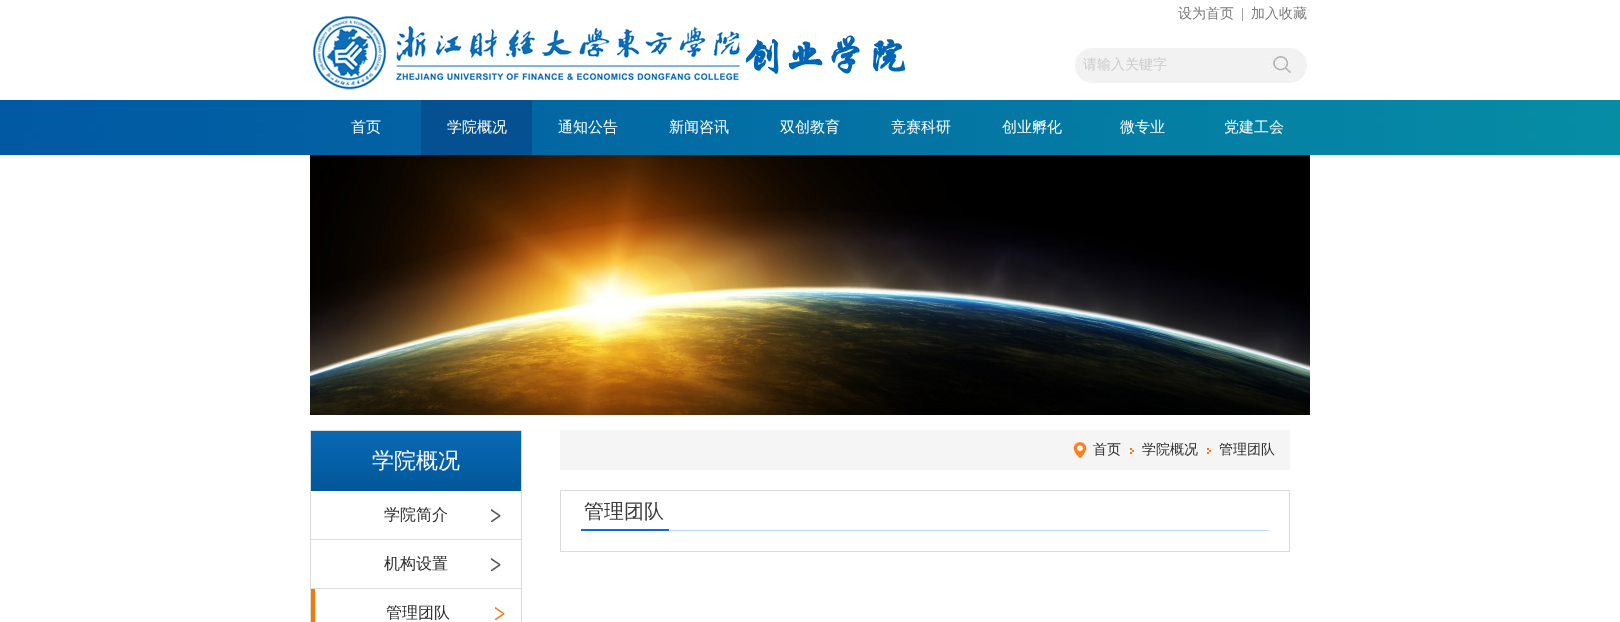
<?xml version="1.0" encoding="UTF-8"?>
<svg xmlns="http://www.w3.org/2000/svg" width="1620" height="622">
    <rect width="100%" height="100%" fill="#FFFFFF"/>
    <image x="312" y="15" width="593" height="75" href="img_01.png"/>
    <text x="1178" y="18" font-family="WenQuanYi Zen Hei" font-size="14" font-weight="500" fill="#7B7B7B">设为首页</text>
    <text x="1241" y="18" font-family="Liberation Serif" font-size="14" fill="#7B7B7B">|</text>
    <text x="1251" y="18" font-family="WenQuanYi Zen Hei" font-size="14" font-weight="500" fill="#7B7B7B">加入收藏</text>
    <image x="1075" y="48" width="232" height="35" href="img_02.png"/>
    <text x="1083" y="69" font-family="WenQuanYi Zen Hei" font-size="14" font-weight="500" fill="#CCCCCC">请输入关键字</text>
    <image x="0" y="100" width="1620" height="55" href="img_03.png"/>
    <text x="351" y="132" font-family="WenQuanYi Zen Hei" font-size="15" font-weight="500" fill="#FFFFFF">首页</text>
    <rect x="421" y="100" width="111" height="55" fill="#045090"/>
    <text x="447" y="132" font-family="WenQuanYi Zen Hei" font-size="15" font-weight="500" fill="#FFFFFF">学院概况</text>
    <text x="558" y="132" font-family="WenQuanYi Zen Hei" font-size="15" font-weight="500" fill="#FFFFFF">通知公告</text>
    <text x="669" y="132" font-family="WenQuanYi Zen Hei" font-size="15" font-weight="500" fill="#FFFFFF">新闻咨讯</text>
    <text x="780" y="132" font-family="WenQuanYi Zen Hei" font-size="15" font-weight="500" fill="#FFFFFF">双创教育</text>
    <text x="891" y="132" font-family="WenQuanYi Zen Hei" font-size="15" font-weight="500" fill="#FFFFFF">竞赛科研</text>
    <text x="1002" y="132" font-family="WenQuanYi Zen Hei" font-size="15" font-weight="500" fill="#FFFFFF">创业孵化</text>
    <text x="1120" y="132" font-family="WenQuanYi Zen Hei" font-size="15" font-weight="500" fill="#FFFFFF">微专业</text>
    <text x="1224" y="132" font-family="WenQuanYi Zen Hei" font-size="15" font-weight="500" fill="#FFFFFF">党建工会</text>
    <image x="310" y="155" width="1000" height="260" href="img_04.png"/>
    <rect x="310.5" y="430.5" width="211" height="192" fill="none" stroke="#DBDBDB"/>
    <image x="311" y="431" width="210" height="60" href="img_05.png"/>
    <text x="372" y="468" font-family="WenQuanYi Zen Hei" font-size="22" font-weight="500" fill="#FFFFFF">学院概况</text>
    <rect x="311" y="539" width="210" height="1" fill="#DBDBDB"/>
    <image x="491" y="509" width="10" height="13" href="img_06.png"/>
    <text x="384" y="520" font-family="WenQuanYi Zen Hei" font-size="16" font-weight="500" fill="#2E2C2C">学院简介</text>
    <rect x="311" y="588" width="210" height="1" fill="#DBDBDB"/>
    <image x="491" y="558" width="10" height="13" href="img_06.png"/>
    <text x="384" y="569" font-family="WenQuanYi Zen Hei" font-size="16" font-weight="500" fill="#2E2C2C">机构设置</text>
    <path d="M 311 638 V 589 H 315 V 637 Z" fill="#FA7703"/>
    <image x="495" y="607" width="10" height="13" href="img_07.png"/>
    <text x="386" y="618" font-family="WenQuanYi Zen Hei" font-size="16" font-weight="500" fill="#2E2C2C">管理团队</text>
    <rect x="560" y="430" width="730" height="40" fill="#F5F5F5"/>
    <image x="1073" y="442" width="14" height="16" href="img_08.png"/>
    <text x="1093" y="454" font-family="WenQuanYi Zen Hei" font-size="14" font-weight="500" fill="#2E2C2C">首页</text>
    <image x="1130" y="448" width="4" height="6" href="img_09.png"/>
    <text x="1142" y="454" font-family="WenQuanYi Zen Hei" font-size="14" font-weight="500" fill="#2E2C2C">学院概况</text>
    <image x="1207" y="448" width="4" height="6" href="img_09.png"/>
    <text x="1219" y="454" font-family="WenQuanYi Zen Hei" font-size="14" font-weight="500" fill="#2E2C2C">管理团队</text>
    <rect x="560.5" y="490.5" width="729" height="61" fill="none" stroke="#DBDBDB"/>
    <image x="581" y="529" width="688" height="2" href="img_10.png"/>
    <text x="584" y="518" font-family="WenQuanYi Zen Hei" font-size="20" font-weight="500" fill="#3A3B3B">管理团队</text>
</svg>
